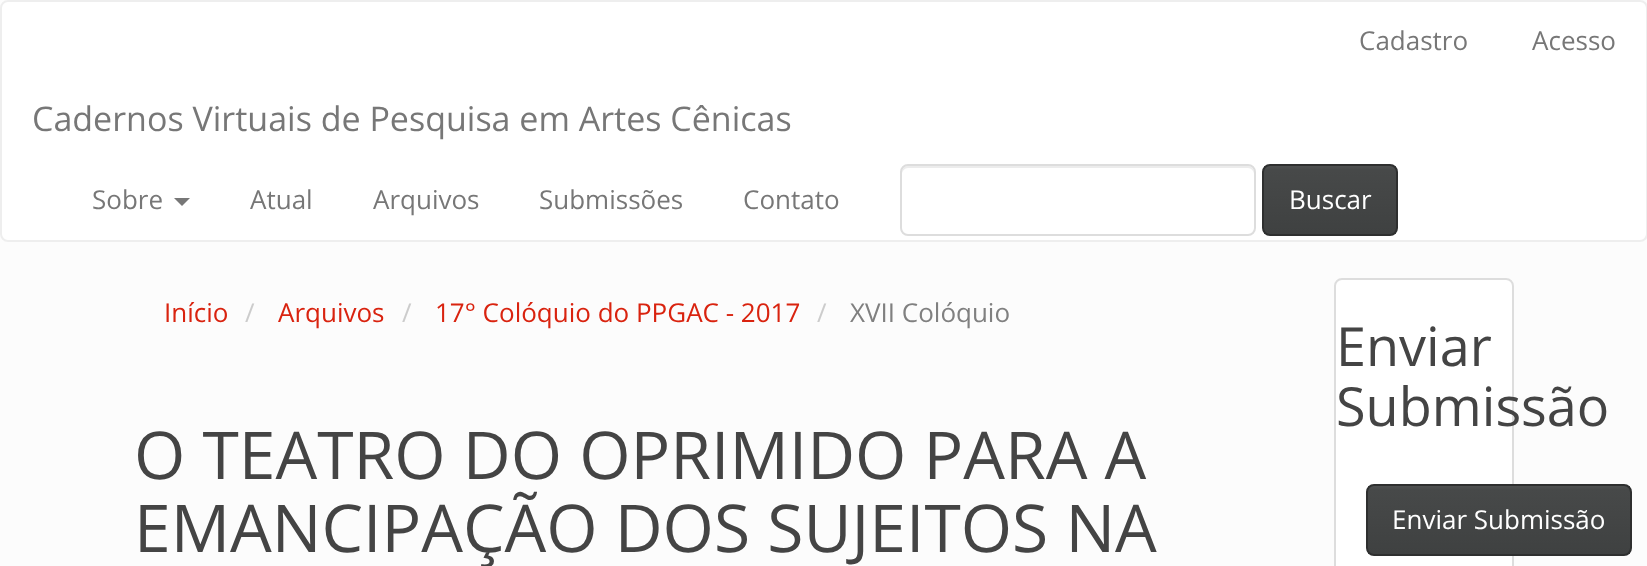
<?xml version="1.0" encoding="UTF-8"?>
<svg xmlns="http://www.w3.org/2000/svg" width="1647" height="566">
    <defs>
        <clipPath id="clip1"><rect x="1262" y="164" width="136" height="72" rx="8"/></clipPath>
        <linearGradient id="g1" gradientUnits="userSpaceOnUse" x1="1330" y1="166" x2="1330" y2="234"><stop offset="0" stop-color="#4F5151"/><stop offset="0.06" stop-color="#474949"/><stop offset="1" stop-color="#3F4141"/></linearGradient>
        <clipPath id="clip2"><rect x="1366" y="484" width="266" height="72" rx="8"/></clipPath>
        <linearGradient id="g2" gradientUnits="userSpaceOnUse" x1="1499" y1="486" x2="1499" y2="554"><stop offset="0" stop-color="#4F5151"/><stop offset="0.06" stop-color="#474949"/><stop offset="1" stop-color="#3F4141"/></linearGradient>
    </defs>
    <rect width="100%" height="100%" fill="#FCFCFC"/>
    <rect x="1" y="1" width="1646" height="240" rx="7" fill="#FFFFFF" stroke="#EEEEEE" stroke-width="2"/>
    <text x="1359" y="50" font-family="Open Sans" font-size="26" fill="#777777">Cadastro</text>
    <text x="1532" y="50" font-family="Open Sans" font-size="26" fill="#777777">Acesso</text>
    <text x="32" y="131" font-family="Open Sans" font-size="34" fill="#777777">Cadernos Virtuais de Pesquisa em Artes Cênicas</text>
    <text x="92" y="209" font-family="Open Sans" font-size="26" fill="#777777">Sobre</text>
    <path d="M 174 198 H 190 L 182 206 Z" fill="#777777"/>
    <text x="250" y="209" font-family="Open Sans" font-size="26" fill="#777777">Atual</text>
    <text x="373" y="209" font-family="Open Sans" font-size="26" fill="#777777">Arquivos</text>
    <text x="539" y="209" font-family="Open Sans" font-size="26" fill="#777777">Submissões</text>
    <text x="743" y="209" font-family="Open Sans" font-size="26" fill="#777777">Contato</text>
    <path d="M 908 168 H 1248 C 1251 168 1254 171 1254 174 V 172 C 1254 169 1251 166 1248 166 H 908 C 905 166 902 169 902 172 V 174 C 902 171 905 168 908 168 Z" fill="#ECECEC"/>
    <rect x="901" y="165" width="354" height="70" rx="7" fill="none" stroke="#DDDDDD" stroke-width="2"/>
    <g clip-path="url(#clip1)">
        <rect x="1264" y="166" width="132" height="68" fill="url(#g1)"/>
    </g>
    <rect x="1263" y="165" width="134" height="70" rx="7" fill="none" stroke="#2E2F2F" stroke-width="2"/>
    <text x="1289" y="209" font-family="Open Sans" font-size="26" fill="#FFFFFF">Buscar</text>
    <text x="164" y="322" font-family="Open Sans" font-size="26" fill="#D9230F">Início</text>
    <text x="245" y="322" font-family="Open Sans" font-size="26" fill="#CCCCCC">/</text>
    <text x="278" y="322" font-family="Open Sans" font-size="26" fill="#D9230F">Arquivos</text>
    <text x="402" y="322" font-family="Open Sans" font-size="26" fill="#CCCCCC">/</text>
    <text x="435" y="322" font-family="Open Sans" font-size="26" fill="#D9230F">17° Colóquio do PPGAC - 2017</text>
    <text x="817" y="322" font-family="Open Sans" font-size="26" fill="#CCCCCC">/</text>
    <text x="850" y="322" font-family="Open Sans" font-size="26" fill="#808080">XVII Colóquio</text>
    <text font-family="Open Sans" font-size="66" fill="#444444">
        <tspan x="134" y="479">O TEATRO DO OPRIMIDO PARA A</tspan>
        <tspan x="134" y="552">EMANCIPAÇÃO DOS SUJEITOS NA</tspan>
    </text>
    <rect x="1335" y="279" width="178" height="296" rx="7" fill="#FFFFFF" stroke="#DDDDDD" stroke-width="2"/>
    <text font-family="Open Sans" font-size="54" fill="#444444">
        <tspan x="1336" y="366">Enviar</tspan>
        <tspan x="1336" y="426">Submissão</tspan>
    </text>
    <g clip-path="url(#clip2)">
        <rect x="1368" y="486" width="262" height="68" fill="url(#g2)"/>
    </g>
    <rect x="1367" y="485" width="264" height="70" rx="7" fill="none" stroke="#2E2F2F" stroke-width="2"/>
    <text x="1392" y="529" font-family="Open Sans" font-size="26" fill="#FFFFFF">Enviar Submissão</text>
</svg>
